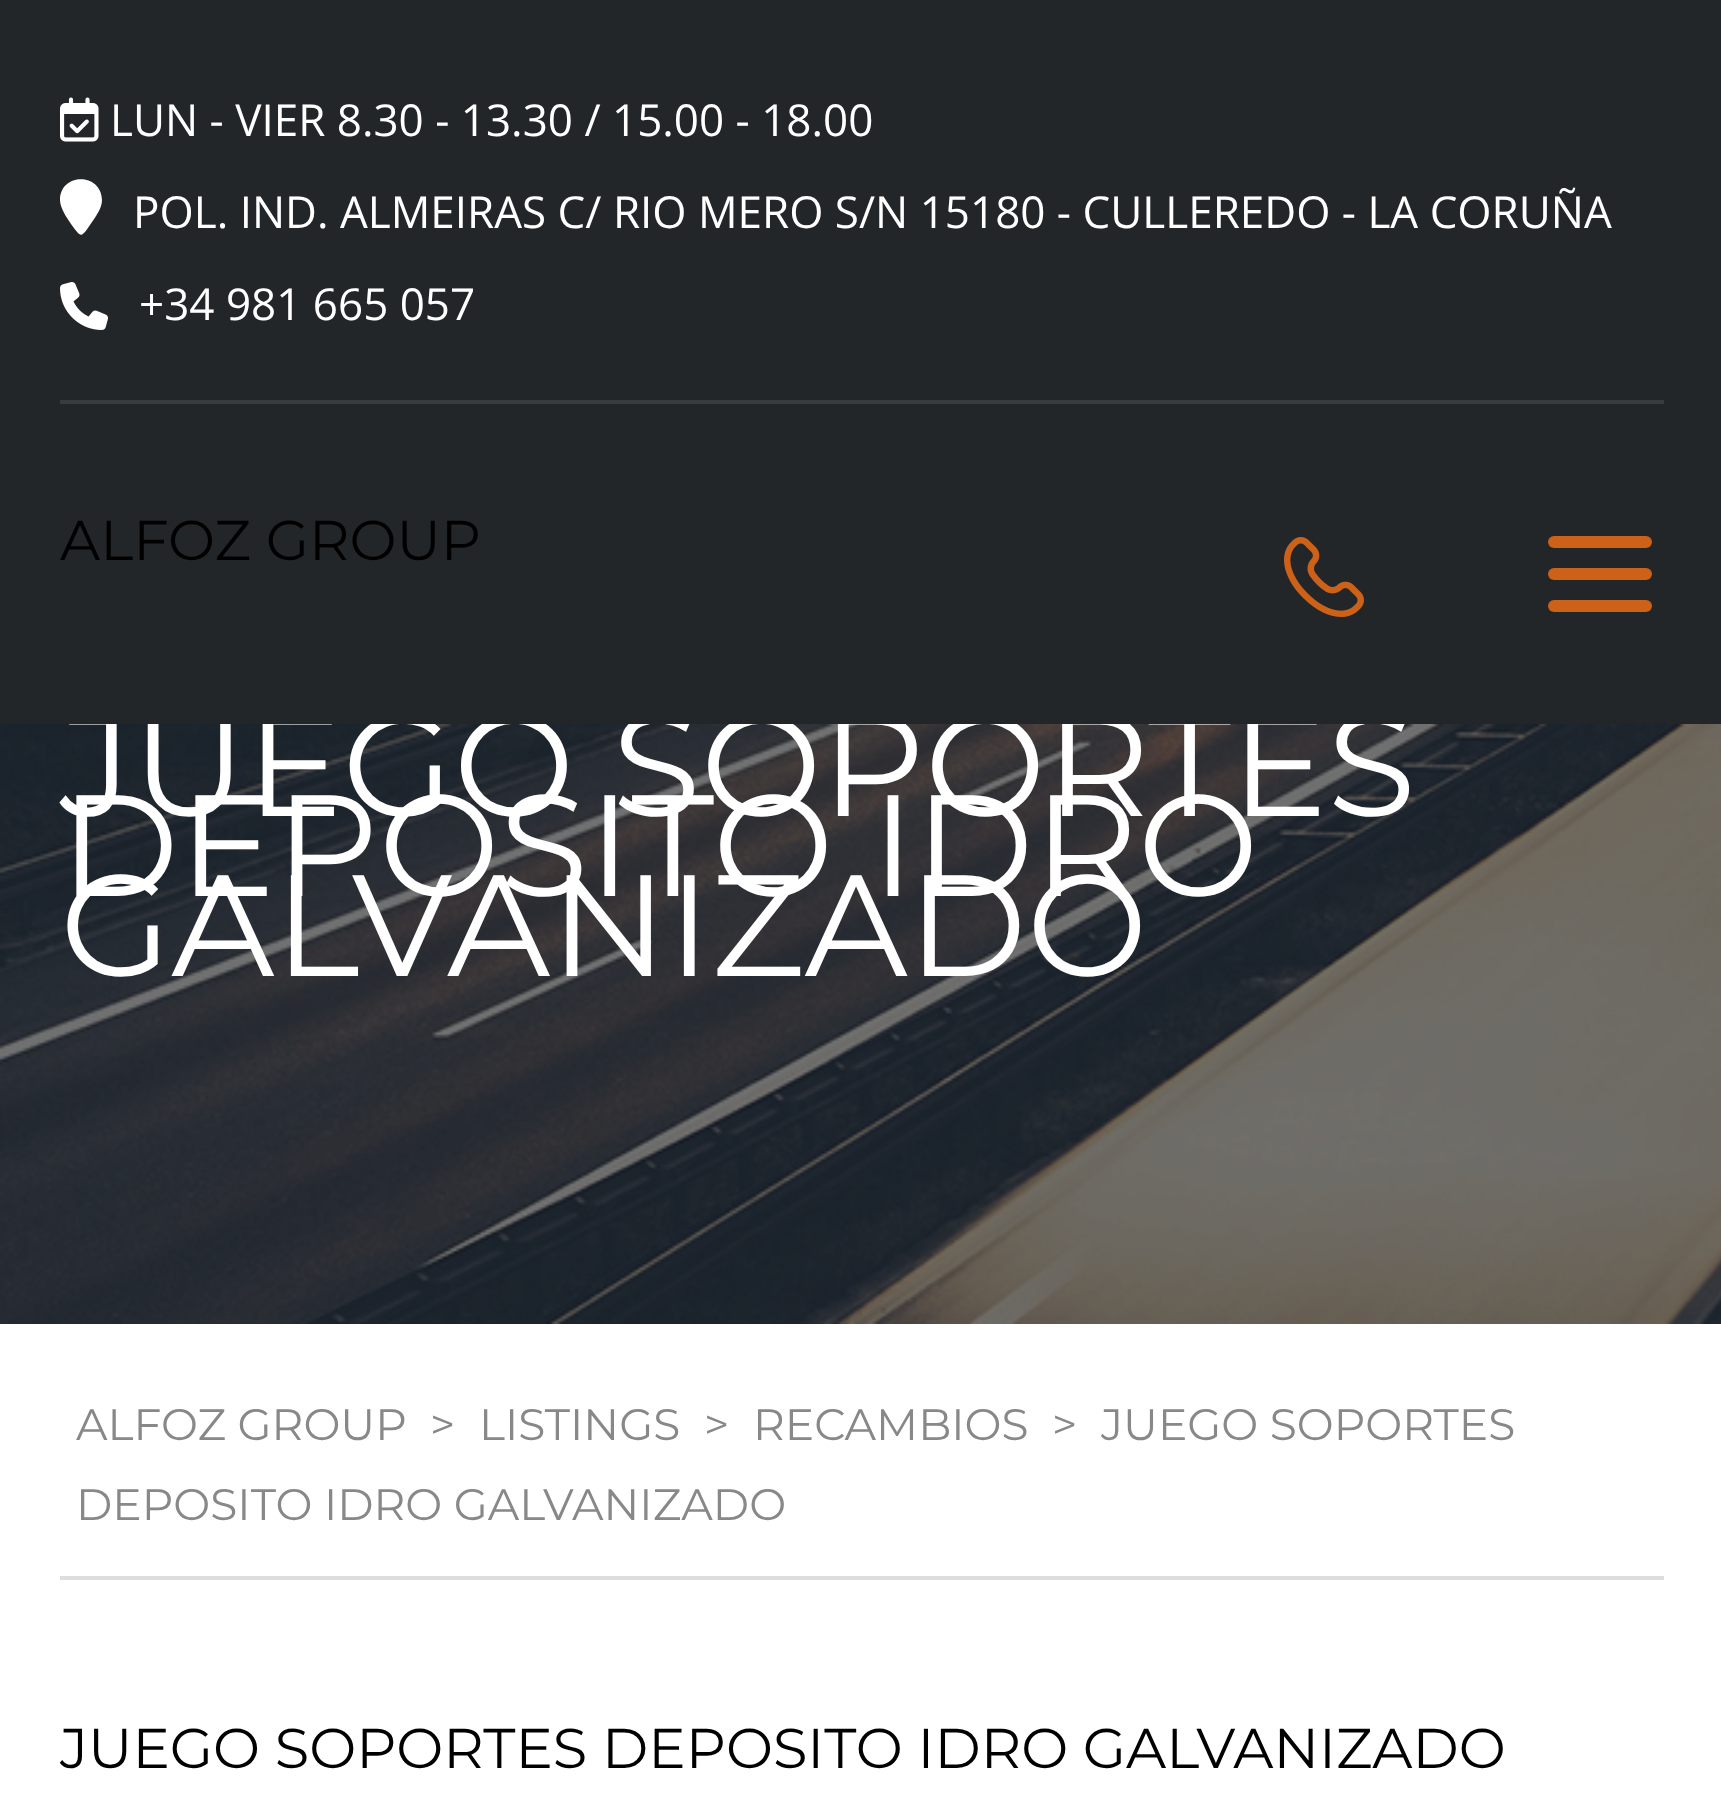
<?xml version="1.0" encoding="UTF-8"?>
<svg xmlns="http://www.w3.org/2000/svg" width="1721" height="1806">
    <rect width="100%" height="100%" fill="#FFFFFF"/>
    <rect x="0" y="0" width="1721" height="404" fill="#232628"/>
    <rect x="60" y="400" width="1604" height="4" fill="#393C3E"/>
    <image x="60" y="97" width="39" height="45" href="img_01.png"/>
    <text x="110" y="136" font-family="Open Sans" font-size="44" fill="#FFFFFF">LUN - VIER 8.30 - 13.30 / 15.00 - 18.00</text>
    <path d="M 102 200 C 102 208 96 216 92 222 C 81 238 82 239 71 224 C 67 218 60 208 60 200 C 60 173 101 172 102 200 Z" fill="#FFFFFF"/>
    <text x="133" y="228" font-family="Open Sans" font-size="44" fill="#FFFFFF">POL. IND. ALMEIRAS C/ RIO MERO S/N 15180 - CULLEREDO - LA CORUÑA</text>
    <image x="60" y="282" width="48" height="48" href="img_02.png"/>
    <text x="139" y="320" font-family="Open Sans" font-size="44" fill="#FFFFFF">+34 981 665 057</text>
    <image x="0" y="724" width="1721" height="600" href="img_04.png"/>
    <text x="60" y="816" font-family="Montserrat" font-size="144" fill="#FFFFFF">JUEGO SOPORTES</text>
    <rect x="0" y="404" width="1721" height="320" fill="#232628"/>
    <text x="60" y="560" font-family="Montserrat" font-size="56" fill="#000000">ALFOZ GROUP</text>
    <image x="1284" y="537" width="80" height="80" href="img_03.png"/>
    <rect x="1548" y="536" width="104" height="12" rx="6" fill="#CC6119"/>
    <rect x="1548" y="568" width="104" height="12" rx="6" fill="#CC6119"/>
    <rect x="1548" y="600" width="104" height="12" rx="6" fill="#CC6119"/>
    <text font-family="Montserrat" font-size="144" fill="#FFFFFF">
        <tspan x="60" y="896">DEPOSITO IDRO</tspan>
        <tspan x="60" y="976">GALVANIZADO</tspan>
    </text>
    <rect x="60" y="1576" width="1604" height="4" fill="#DDDDDD"/>
    <text x="76" y="1440" font-family="Montserrat" font-size="44" fill="#888888">ALFOZ GROUP</text>
    <text x="430" y="1440" font-family="Montserrat" font-size="44" fill="#888888">&gt;</text>
    <text x="479" y="1440" font-family="Montserrat" font-size="44" fill="#888888">LISTINGS</text>
    <text x="704" y="1440" font-family="Montserrat" font-size="44" fill="#888888">&gt;</text>
    <text x="753" y="1440" font-family="Montserrat" font-size="44" fill="#888888">RECAMBIOS</text>
    <text x="1052" y="1440" font-family="Montserrat" font-size="44" fill="#888888">&gt;</text>
    <text x="1101" y="1440" font-family="Montserrat" font-size="44" fill="#888888">JUEGO SOPORTES</text>
    <text x="76" y="1520" font-family="Montserrat" font-size="44" fill="#888888">DEPOSITO IDRO GALVANIZADO</text>
    <text x="60" y="1768" font-family="Montserrat" font-size="56" fill="#000000">JUEGO SOPORTES DEPOSITO IDRO GALVANIZADO</text>
</svg>
